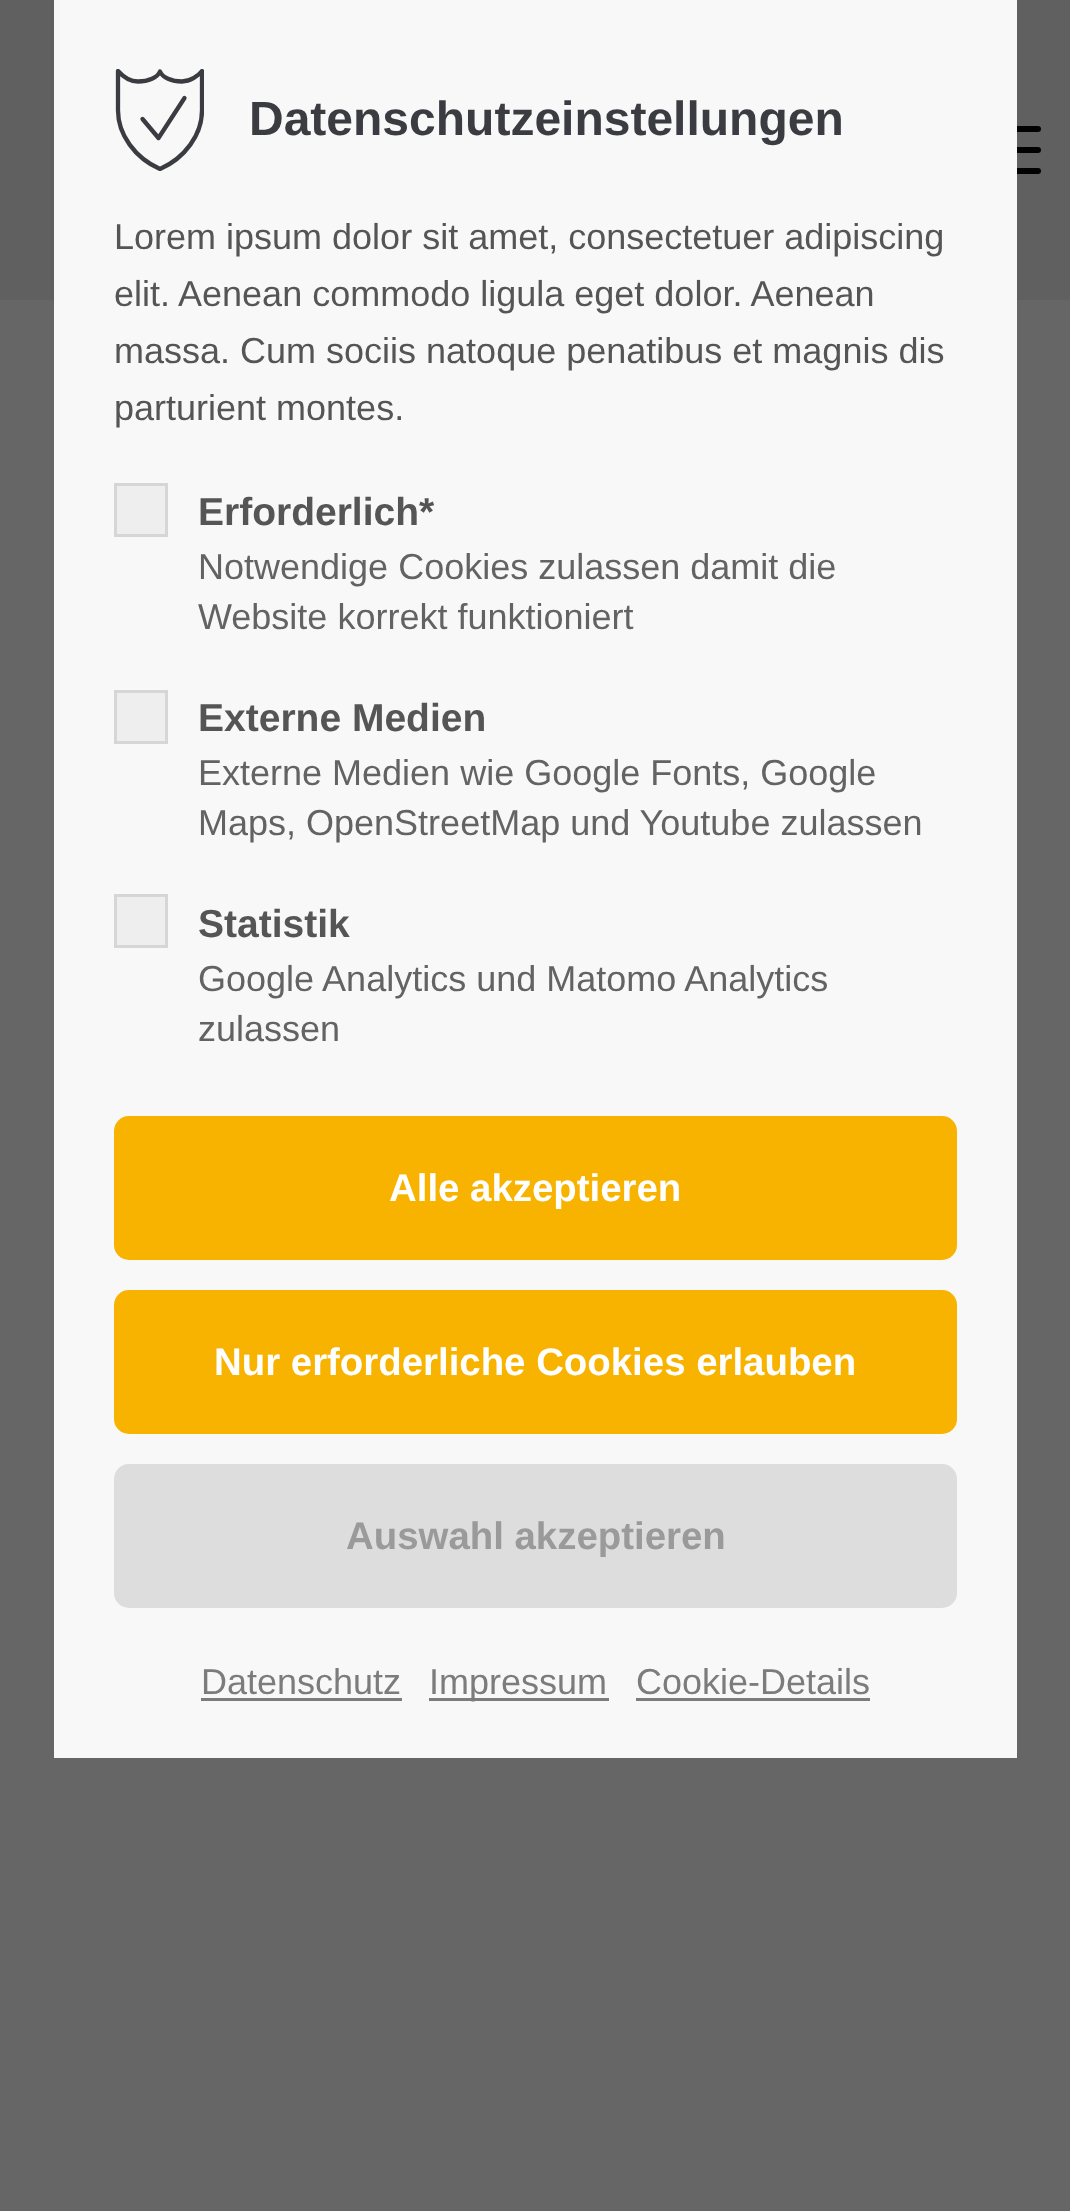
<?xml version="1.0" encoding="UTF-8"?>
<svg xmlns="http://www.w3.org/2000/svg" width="1070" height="2211">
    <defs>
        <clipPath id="clip1"><rect x="114" y="69" width="90" height="102"/></clipPath>
    </defs>
    <rect width="100%" height="100%" fill="#666666"/>
    <rect x="0" y="0" width="1070" height="300" fill="#606060"/>
    <rect x="978" y="147" width="63" height="6" rx="3" fill="#020202"/>
    <rect x="978" y="126" width="63" height="6" rx="3" fill="#020202"/>
    <rect x="978" y="168" width="63" height="6" rx="3" fill="#020202"/>
    <rect x="54" y="0" width="963" height="1758" fill="#F8F8F8"/>
    <g clip-path="url(#clip1)">
        <path d="M 160 169 C 135 158 118 134.5 118 110.5 V 71 C 122 75.5 129.5 81.5 138 81.5 C 148.5 81.5 157.5 77.5 160 71.5 C 162.5 77.5 171.5 81.5 182 81.5 C 190.5 81.5 198.5 75.5 202 71 V 110.5 C 202 134.5 185 158 160 169 Z" fill="none" stroke="#3B3C41" stroke-width="4.3" stroke-linecap="round" stroke-linejoin="round"/>
    </g>
    <path d="M 142.5 119 L 158.5 138 L 184.5 98" fill="none" stroke="#3B3C41" stroke-width="4.3" stroke-linecap="round" stroke-linejoin="round"/>
    <text x="249" y="135" font-family="Liberation Sans" font-size="48" font-weight="700" fill="#3B3C42">Datenschutzeinstellungen</text>
    <text font-family="Liberation Sans" font-size="36" fill="#555555">
        <tspan x="114" y="249">Lorem ipsum dolor sit amet, consectetuer adipiscing</tspan>
        <tspan x="114" y="306">elit. Aenean commodo ligula eget dolor. Aenean</tspan>
        <tspan x="114" y="363">massa. Cum sociis natoque penatibus et magnis dis</tspan>
        <tspan x="114" y="420">parturient montes.</tspan>
    </text>
    <rect x="115.5" y="484.5" width="51" height="51" fill="#EEEEEE" stroke="#D6D6D6" stroke-width="3"/>
    <text x="198" y="525" font-family="Liberation Sans" font-size="39" font-weight="700" fill="#555555">Erforderlich*</text>
    <text font-family="Liberation Sans" font-size="36" fill="#636363">
        <tspan x="198" y="579">Notwendige Cookies zulassen damit die</tspan>
        <tspan x="198" y="629">Website korrekt funktioniert</tspan>
    </text>
    <rect x="115.5" y="691.5" width="51" height="51" fill="#EEEEEE" stroke="#D6D6D6" stroke-width="3"/>
    <text x="198" y="731" font-family="Liberation Sans" font-size="39" font-weight="700" fill="#555555">Externe Medien</text>
    <text font-family="Liberation Sans" font-size="36" fill="#636363">
        <tspan x="198" y="785">Externe Medien wie Google Fonts, Google</tspan>
        <tspan x="198" y="835">Maps, OpenStreetMap und Youtube zulassen</tspan>
    </text>
    <rect x="115.5" y="895.5" width="51" height="51" fill="#EEEEEE" stroke="#D6D6D6" stroke-width="3"/>
    <text x="198" y="937" font-family="Liberation Sans" font-size="39" font-weight="700" fill="#555555">Statistik</text>
    <text font-family="Liberation Sans" font-size="36" fill="#636363">
        <tspan x="198" y="991">Google Analytics und Matomo Analytics</tspan>
        <tspan x="198" y="1041">zulassen</tspan>
    </text>
    <rect x="114" y="1116" width="843" height="144" rx="15" fill="#F8B300"/>
    <text x="389" y="1201" font-family="Liberation Sans" font-size="38.4" font-weight="700" fill="#FFFFFF">Alle akzeptieren</text>
    <rect x="114" y="1290" width="843" height="144" rx="15" fill="#F8B300"/>
    <text x="214" y="1375" font-family="Liberation Sans" font-size="38.4" font-weight="700" fill="#FFFFFF">Nur erforderliche Cookies erlauben</text>
    <rect x="114" y="1464" width="843" height="144" rx="15" fill="#DDDDDD"/>
    <text x="346" y="1549" font-family="Liberation Sans" font-size="38.4" font-weight="700" fill="#9A9A9A">Auswahl akzeptieren</text>
    <text x="201" y="1694" font-family="Liberation Sans" font-size="36" fill="#7C7C7C">Datenschutz</text>
    <rect x="201" y="1698" width="201" height="3" fill="#7C7C7C"/>
    <rect x="429" y="1698" width="180" height="3" fill="#7C7C7C"/>
    <text x="429" y="1694" font-family="Liberation Sans" font-size="36" fill="#7C7C7C">Impressum</text>
    <text x="636" y="1694" font-family="Liberation Sans" font-size="36" fill="#7C7C7C">Cookie-Details</text>
    <rect x="636" y="1698" width="234" height="3" fill="#7C7C7C"/>
</svg>
